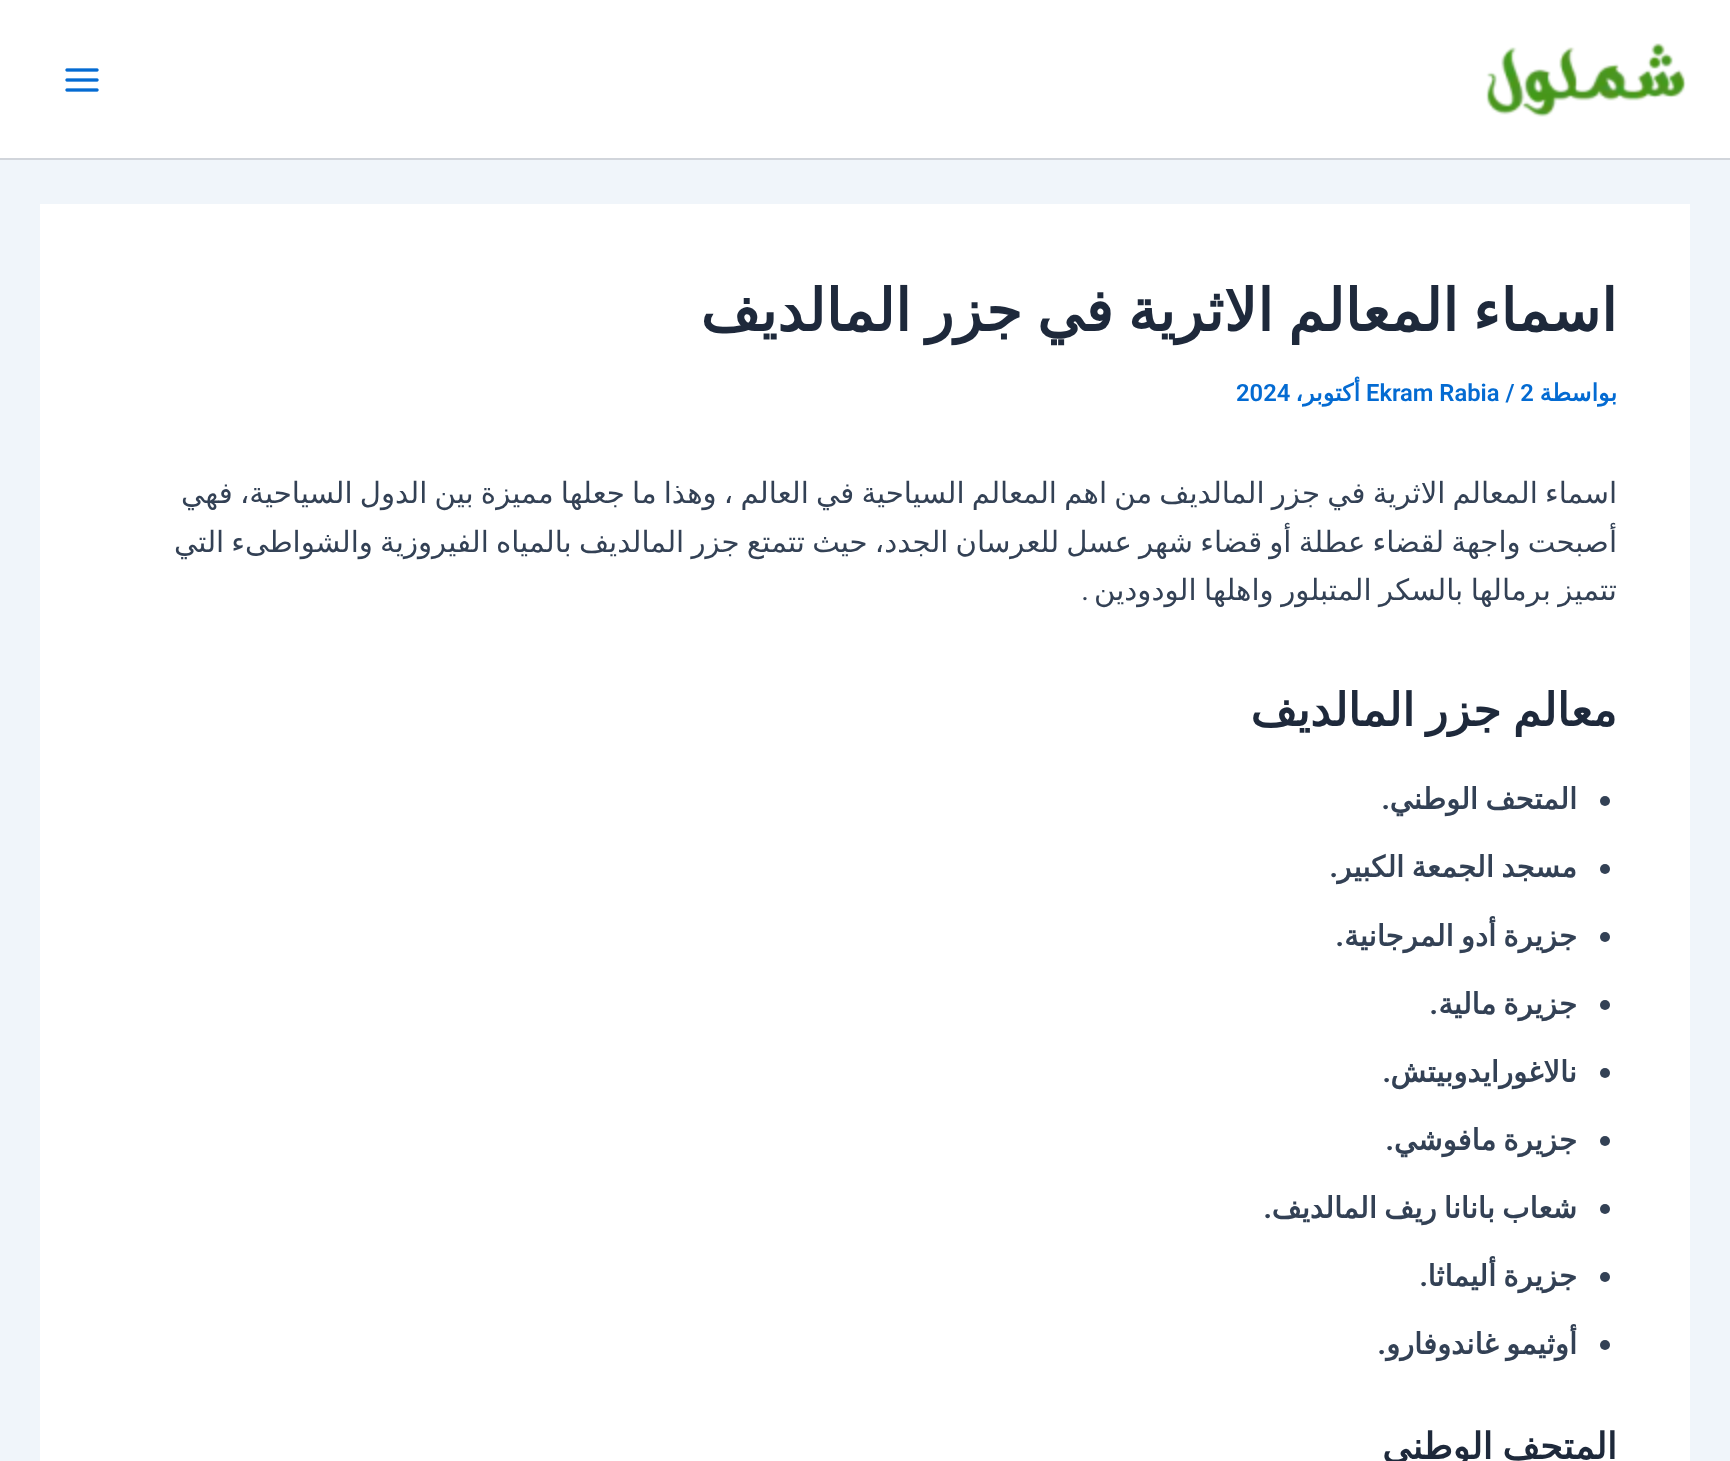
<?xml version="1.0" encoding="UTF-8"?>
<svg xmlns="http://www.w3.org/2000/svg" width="1730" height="1461">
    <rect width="100%" height="100%" fill="#F0F5FA"/>
    <rect x="0" y="0" width="1730" height="158" fill="#FFFFFF"/>
    <rect x="0" y="158" width="1730" height="2" fill="#D1D5DB"/>
    <image x="1486" y="43" width="200" height="74" href="img_01.png"/>
    <image x="65" y="68" width="34" height="24" href="img_02.png"/>
    <rect x="40" y="204" width="1650" height="1257" fill="#FFFFFF"/>
    <text x="1617" y="331" word-spacing="-4" font-family="DejaVu Sans" font-size="58.4" font-weight="700" direction="rtl" fill="#1E293B">اسماء المعالم الاثرية في جزر المالديف</text>
    <text x="1617" y="401" font-family="DejaVu Sans" font-size="23.75" font-weight="700" direction="rtl" fill="#046BD2">بواسطة</text>
    <text x="1366" y="401" font-family="Roboto" font-size="23.75" font-weight="600" fill="#046BD2">Ekram Rabia / 2</text>
    <text x="1360" y="401" font-family="DejaVu Sans" font-size="23.75" font-weight="700" direction="rtl" fill="#046BD2">أكتوبر،</text>
    <text x="1236" y="401" font-family="Roboto" font-size="23.75" font-weight="600" fill="#046BD2">2024</text>
    <text font-family="DejaVu Sans" font-size="29.2" direction="rtl" fill="#334155">
        <tspan x="1617" y="503" word-spacing="-2.1">اسماء المعالم الاثرية في جزر المالديف من اهم المعالم السياحية في العالم ، وهذا ما جعلها مميزة بين الدول السياحية، فهي</tspan>
        <tspan x="1617" y="552" word-spacing="-2.1">أصبحت واجهة لقضاء عطلة أو قضاء شهر عسل للعرسان الجدد، حيث تتمتع جزر المالديف بالمياه الفيروزية والشواطىء التي</tspan>
        <tspan x="1617" y="600" word-spacing="-1.75">تتميز برمالها بالسكر المتبلور واهلها الودودين</tspan>
    </text>
    <text x="1089" y="600" font-family="Roboto" font-size="29.2" direction="rtl" fill="#334155">.</text>
    <text x="1617" y="726" word-spacing="-3" font-family="DejaVu Sans" font-size="45.5" font-weight="700" direction="rtl" fill="#1E293B">معالم جزر المالديف</text>
    <circle cx="1605" cy="801" r="5" fill="#334155"/>
    <text x="1577" y="809" word-spacing="-2" font-family="DejaVu Sans" font-size="29.2" font-weight="700" direction="rtl" fill="#334155">المتحف الوطني</text>
    <text x="1390" y="809" font-family="Roboto" font-size="29.2" font-weight="700" direction="rtl" fill="#334155">.</text>
    <circle cx="1605" cy="869" r="5" fill="#334155"/>
    <text x="1577" y="877" word-spacing="-2" font-family="DejaVu Sans" font-size="29.2" font-weight="700" direction="rtl" fill="#334155">مسجد الجمعة الكبير</text>
    <text x="1338" y="877" font-family="Roboto" font-size="29.2" font-weight="700" direction="rtl" fill="#334155">.</text>
    <circle cx="1605" cy="937" r="5" fill="#334155"/>
    <text x="1577" y="946" word-spacing="-2" font-family="DejaVu Sans" font-size="29.2" font-weight="700" direction="rtl" fill="#334155">جزيرة أدو المرجانية</text>
    <text x="1344" y="946" font-family="Roboto" font-size="29.2" font-weight="700" direction="rtl" fill="#334155">.</text>
    <circle cx="1605" cy="1005" r="5" fill="#334155"/>
    <text x="1577" y="1014" word-spacing="-2" font-family="DejaVu Sans" font-size="29.2" font-weight="700" direction="rtl" fill="#334155">جزيرة مالية</text>
    <text x="1438" y="1014" font-family="Roboto" font-size="29.2" font-weight="700" direction="rtl" fill="#334155">.</text>
    <circle cx="1605" cy="1073" r="5" fill="#334155"/>
    <text x="1577" y="1082" font-family="DejaVu Sans" font-size="29.2" font-weight="700" direction="rtl" fill="#334155">نالاغورايدوبيتش</text>
    <text x="1391" y="1082" font-family="Roboto" font-size="29.2" font-weight="700" direction="rtl" fill="#334155">.</text>
    <circle cx="1605" cy="1141" r="5" fill="#334155"/>
    <text x="1577" y="1150" word-spacing="-2" font-family="DejaVu Sans" font-size="29.2" font-weight="700" direction="rtl" fill="#334155">جزيرة مافوشي</text>
    <text x="1394" y="1150" font-family="Roboto" font-size="29.2" font-weight="700" direction="rtl" fill="#334155">.</text>
    <circle cx="1605" cy="1209" r="5" fill="#334155"/>
    <text x="1577" y="1218" word-spacing="-2" font-family="DejaVu Sans" font-size="29.2" font-weight="700" direction="rtl" fill="#334155">شعاب بانانا ريف المالديف</text>
    <text x="1272" y="1218" font-family="Roboto" font-size="29.2" font-weight="700" direction="rtl" fill="#334155">.</text>
    <circle cx="1605" cy="1277" r="5" fill="#334155"/>
    <text x="1577" y="1286" word-spacing="-2" font-family="DejaVu Sans" font-size="29.2" font-weight="700" direction="rtl" fill="#334155">جزيرة أليماثا</text>
    <text x="1428" y="1286" font-family="Roboto" font-size="29.2" font-weight="700" direction="rtl" fill="#334155">.</text>
    <circle cx="1605" cy="1345" r="5" fill="#334155"/>
    <text x="1386" y="1354" font-family="Roboto" font-size="29.2" font-weight="700" direction="rtl" fill="#334155">.</text>
    <text x="1577" y="1354" word-spacing="-2" font-family="DejaVu Sans" font-size="29.2" font-weight="700" direction="rtl" fill="#334155">أوثيمو غاندوفارو</text>
    <text x="1617" y="1459" word-spacing="-2" font-family="DejaVu Sans" font-size="36.5" font-weight="700" direction="rtl" fill="#1E293B">المتحف الوطني</text>
</svg>
